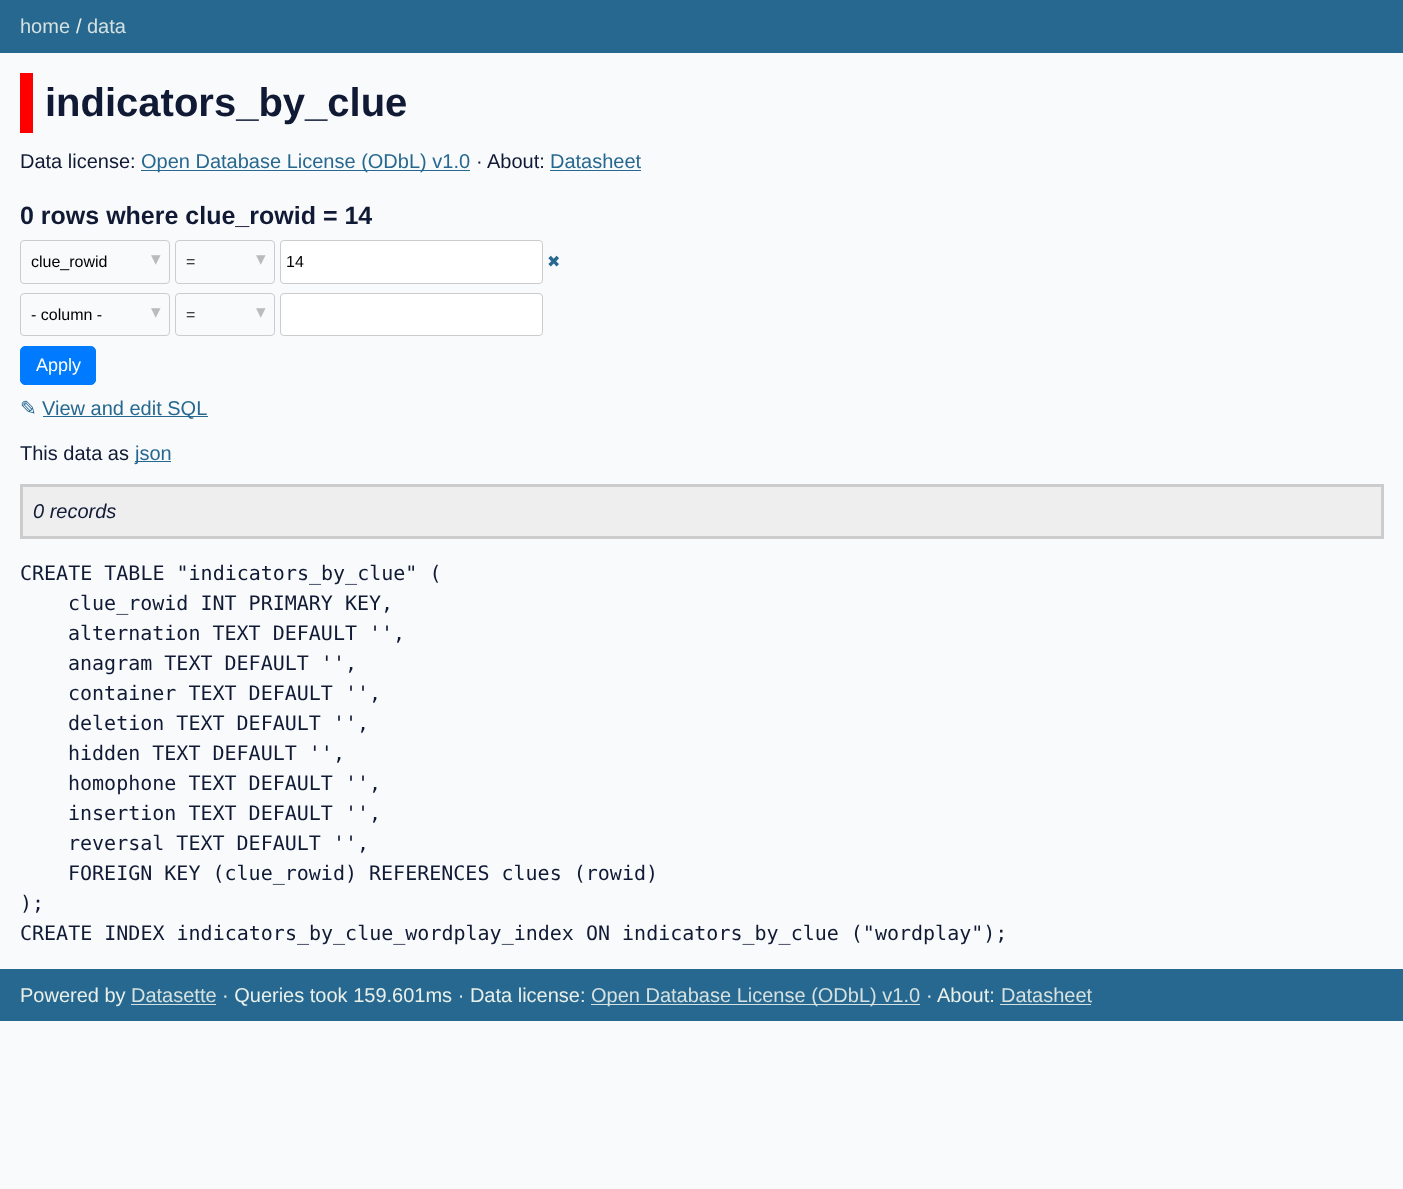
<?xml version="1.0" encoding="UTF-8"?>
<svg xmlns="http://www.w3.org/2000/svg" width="1403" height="1189">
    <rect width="100%" height="100%" fill="#F8FAFB"/>
    <rect x="0" y="0" width="1403" height="53" fill="#276890"/>
    <text x="20" y="33" font-family="Liberation Sans" font-size="20" fill="#D4E1E0">home</text>
    <text x="76" y="33" font-family="Liberation Sans" font-size="20" fill="#E9F0EA">/</text>
    <text x="87" y="33" font-family="Liberation Sans" font-size="20" fill="#D4E1E0">data</text>
    <rect x="20" y="73" width="13" height="60" fill="#FF0000"/>
    <text x="45" y="116" font-family="Liberation Sans" font-size="40" font-weight="700" fill="#111A35">indicators_by_clue</text>
    <text x="20" y="168" font-family="Liberation Sans" font-size="20" fill="#111A35">Data license:</text>
    <rect x="141" y="170" width="329" height="1" fill="#276890"/>
    <text x="141" y="168" font-family="Liberation Sans" font-size="20" fill="#276890">Open Database License (ODbL) v1.0</text>
    <text x="476" y="168" font-family="Liberation Sans" font-size="20" fill="#111A35">·</text>
    <text x="487" y="168" font-family="Liberation Sans" font-size="20" fill="#111A35">About:</text>
    <text x="550" y="168" font-family="Liberation Sans" font-size="20" fill="#276890">Datasheet</text>
    <rect x="550" y="170" width="91" height="1" fill="#276890"/>
    <text x="20" y="224" font-family="Liberation Sans" font-size="25" font-weight="700" fill="#111A35">0 rows where clue_rowid = 14</text>
    <rect x="20.5" y="240.5" width="149" height="43" rx="3.5" fill="none" stroke="#CCCCCC"/>
    <text x="31" y="267" font-family="Liberation Sans" font-size="16" fill="#000000">clue_rowid</text>
    <text x="151" y="265" font-family="DejaVu Sans" font-size="19" fill="#BBBBBB">▾</text>
    <rect x="175.5" y="240.5" width="99" height="43" rx="3.5" fill="none" stroke="#CCCCCC"/>
    <text x="186" y="267" font-family="Liberation Sans" font-size="16" fill="#000000">=</text>
    <text x="256" y="265" font-family="DejaVu Sans" font-size="19" fill="#BBBBBB">▾</text>
    <rect x="280.5" y="240.5" width="262" height="43" rx="3.5" fill="#FFFFFF" stroke="#CCCCCC"/>
    <text x="286" y="267" font-family="Liberation Sans" font-size="16" fill="#000000">14</text>
    <text x="547" y="267" font-family="DejaVu Sans" font-size="16" fill="#276890">✖</text>
    <rect x="20.5" y="293.5" width="149" height="42" rx="3.5" fill="none" stroke="#CCCCCC"/>
    <text x="31" y="320" font-family="Liberation Sans" font-size="16" fill="#000000">- column -</text>
    <text x="151" y="318" font-family="DejaVu Sans" font-size="19" fill="#BBBBBB">▾</text>
    <rect x="175.5" y="293.5" width="99" height="42" rx="3.5" fill="none" stroke="#CCCCCC"/>
    <text x="186" y="320" font-family="Liberation Sans" font-size="16" fill="#000000">=</text>
    <text x="256" y="318" font-family="DejaVu Sans" font-size="19" fill="#BBBBBB">▾</text>
    <rect x="280.5" y="293.5" width="262" height="42" rx="3.5" fill="#FFFFFF" stroke="#CCCCCC"/>
    <rect x="20.5" y="346.5" width="75" height="38" rx="4.5" fill="#007BFF" stroke="#007BFF"/>
    <text x="36" y="371" font-family="Liberation Sans" font-size="18" fill="#FFFFFF">Apply</text>
    <text x="20" y="415" font-family="DejaVu Sans" font-size="20" fill="#276890">✎</text>
    <rect x="43" y="416" width="165" height="1" fill="#276890"/>
    <text x="42" y="415" font-family="Liberation Sans" font-size="20" fill="#276890">View and edit SQL</text>
    <text x="20" y="460" font-family="Liberation Sans" font-size="20" fill="#111A35">This data as</text>
    <rect x="135" y="461" width="36" height="1" fill="#276890"/>
    <text x="135" y="460" font-family="Liberation Sans" font-size="20" fill="#276890">json</text>
    <rect x="21.5" y="485.5" width="1361" height="52" fill="#EEEEEE" stroke="#CCCCCC" stroke-width="3"/>
    <text x="33" y="518" font-family="Liberation Sans" font-size="20" font-style="italic" fill="#111A35">0 records</text>
    <text x="20" y="580" font-family="DejaVu Sans Mono" font-size="20" fill="#111A35">CREATE TABLE "indicators_by_clue" (</text>
    <text font-family="DejaVu Sans Mono" font-size="20" fill="#111A35">
        <tspan x="68" y="610">clue_rowid INT PRIMARY KEY,</tspan>
        <tspan x="68" y="640">alternation TEXT DEFAULT '',</tspan>
        <tspan x="68" y="670">anagram TEXT DEFAULT '',</tspan>
        <tspan x="68" y="700">container TEXT DEFAULT '',</tspan>
        <tspan x="68" y="730">deletion TEXT DEFAULT '',</tspan>
        <tspan x="68" y="760">hidden TEXT DEFAULT '',</tspan>
        <tspan x="68" y="790">homophone TEXT DEFAULT '',</tspan>
        <tspan x="68" y="820">insertion TEXT DEFAULT '',</tspan>
        <tspan x="68" y="850">reversal TEXT DEFAULT '',</tspan>
        <tspan x="68" y="880">FOREIGN KEY (clue_rowid) REFERENCES clues (rowid)</tspan>
    </text>
    <text font-family="DejaVu Sans Mono" font-size="20" fill="#111A35">
        <tspan x="20" y="910">);</tspan>
        <tspan x="20" y="940">CREATE INDEX indicators_by_clue_wordplay_index ON indicators_by_clue ("wordplay");</tspan>
    </text>
    <rect x="0" y="969" width="1403" height="52" fill="#276890"/>
    <text x="20" y="1002" font-family="Liberation Sans" font-size="20" fill="#E9F0EA">Powered by</text>
    <text x="131" y="1002" font-family="Liberation Sans" font-size="20" fill="#D4E1E0">Datasette</text>
    <rect x="131" y="1004" width="85" height="1" fill="#D4E1E0"/>
    <text x="222" y="1002" font-family="Liberation Sans" font-size="20" fill="#E9F0EA">· Queries took 159.601ms · Data license:</text>
    <rect x="591" y="1004" width="329" height="1" fill="#D4E1E0"/>
    <text x="591" y="1002" font-family="Liberation Sans" font-size="20" fill="#D4E1E0">Open Database License (ODbL) v1.0</text>
    <text x="926" y="1002" font-family="Liberation Sans" font-size="20" fill="#E9F0EA">·</text>
    <text x="937" y="1002" font-family="Liberation Sans" font-size="20" fill="#E9F0EA">About:</text>
    <text x="1001" y="1002" font-family="Liberation Sans" font-size="20" fill="#D4E1E0">Datasheet</text>
    <rect x="1000" y="1004" width="91" height="1" fill="#D4E1E0"/>
</svg>
